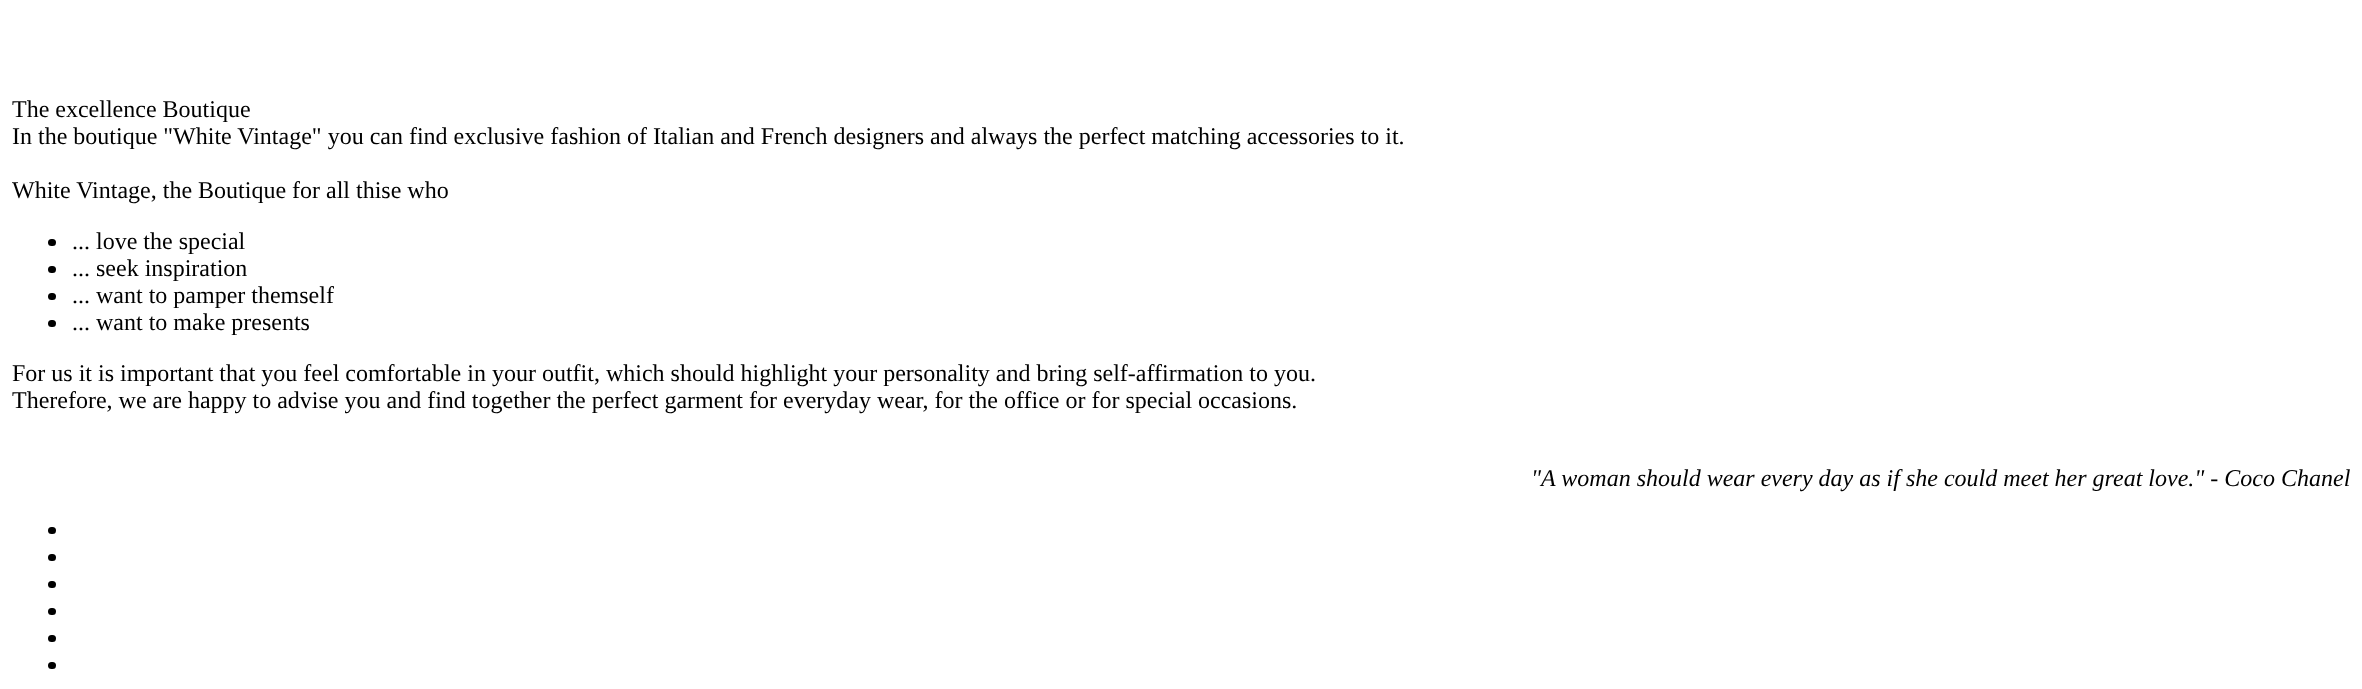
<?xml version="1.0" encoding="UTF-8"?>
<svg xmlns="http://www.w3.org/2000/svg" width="2362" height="689">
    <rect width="100%" height="100%" fill="#FFFFFF"/>
    <text font-family="Liberation Serif" font-size="24" fill="#000000">
        <tspan x="12" y="117">The excellence Boutique</tspan>
        <tspan x="12" y="144">In the boutique "White Vintage" you can find exclusive fashion of Italian and French designers and always the perfect matching accessories to it.</tspan>
    </text>
    <text x="12" y="198" font-family="Liberation Serif" font-size="24" fill="#000000">White Vintage, the Boutique for all thise who</text>
    <rect x="48" y="239" width="8" height="7" rx="3.5" fill="#000000"/>
    <text x="72" y="249" font-family="Liberation Serif" font-size="24" fill="#000000">... love the special</text>
    <rect x="48" y="266" width="8" height="7" rx="3.5" fill="#000000"/>
    <text x="72" y="276" font-family="Liberation Serif" font-size="24" fill="#000000">... seek inspiration</text>
    <rect x="48" y="293" width="8" height="7" rx="3.5" fill="#000000"/>
    <text x="72" y="303" font-family="Liberation Serif" font-size="24" fill="#000000">... want to pamper themself</text>
    <rect x="48" y="320" width="8" height="7" rx="3.5" fill="#000000"/>
    <text x="72" y="330" font-family="Liberation Serif" font-size="24" fill="#000000">... want to make presents</text>
    <text font-family="Liberation Serif" font-size="24" fill="#000000">
        <tspan x="12" y="381">For us it is important that you feel comfortable in your outfit, which should highlight your personality and bring self-affirmation to you.</tspan>
        <tspan x="12" y="408">Therefore, we are happy to advise you and find together the perfect garment for everyday wear, for the office or for special occasions.</tspan>
    </text>
    <text x="1531" y="486" font-family="Liberation Serif" font-size="24" font-style="italic" fill="#000000">"A woman should wear every day as if she could meet her great love." - Coco Chanel</text>
    <rect x="48" y="527" width="8" height="7" rx="3.5" fill="#000000"/>
    <rect x="48" y="554" width="8" height="7" rx="3.5" fill="#000000"/>
    <rect x="48" y="581" width="8" height="7" rx="3.5" fill="#000000"/>
    <rect x="48" y="608" width="8" height="7" rx="3.5" fill="#000000"/>
    <rect x="48" y="635" width="8" height="7" rx="3.5" fill="#000000"/>
    <rect x="48" y="662" width="8" height="7" rx="3.5" fill="#000000"/>
</svg>
